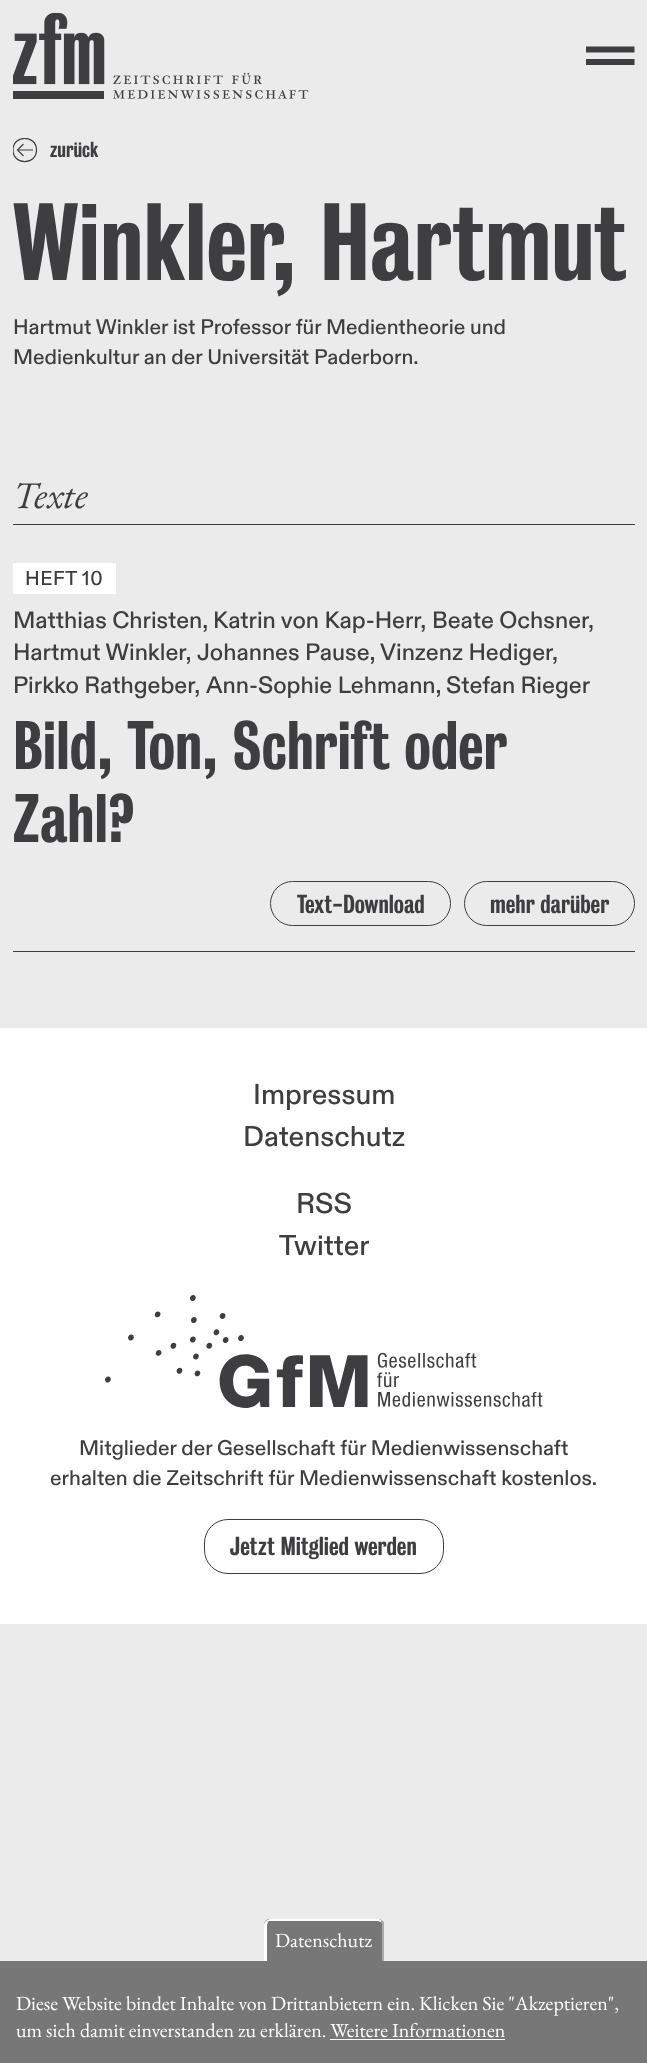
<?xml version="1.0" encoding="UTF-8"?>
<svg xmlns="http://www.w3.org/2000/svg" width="647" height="2063">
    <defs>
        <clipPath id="clip1"><rect x="586" y="46" width="49" height="19"/></clipPath>
        <clipPath id="clip2"><rect x="13" y="138" width="25" height="25"/></clipPath>
    </defs>
    <rect width="100%" height="100%" fill="#ECEBEB"/>
    <image x="13" y="13" width="296" height="86" href="img_01.png"/>
    <g clip-path="url(#clip1)">
        <path d="M 634.5 49.5 H 586 M 634.5 62 H 586" fill="none" stroke="#3E3D40" stroke-width="6.2"/>
    </g>
    <g clip-path="url(#clip2)">
        <path d="M 36.5 150 C 36.5 165.5 13 165.5 13 150 C 13 134.5 36.5 134.5 36.5 150 Z M 33 150 H 18" fill="none" stroke="#3E3D40" stroke-width="1.2"/>
    </g>
    <path d="M 23.5 144 L 17.5 150 L 23.5 156" fill="none" stroke="#3E3D40" stroke-width="1.2"/>
    <text x="50" y="157" font-family="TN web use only" font-size="20" font-weight="500" fill="#3E3D40">zurück</text>
    <text x="13" y="280" font-family="TN web use only" font-size="100" font-weight="500" fill="#3E3D40">Winkler, Hartmut</text>
    <text font-family="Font" font-size="21.25" font-weight="500" fill="#3E3D40">
        <tspan x="13" y="334">Hartmut Winkler ist Professor für Medientheorie und</tspan>
        <tspan x="13" y="364">Medienkultur an der Universität Paderborn.</tspan>
    </text>
    <rect x="13" y="524" width="622" height="1" fill="#3E3D40"/>
    <text x="13" y="508" font-family="EB Garamond" font-size="38" font-style="italic" fill="#3E3D40">Texte</text>
    <rect x="13" y="951" width="622" height="1" fill="#3E3D40"/>
    <rect x="13" y="563" width="103" height="31" fill="#FFFFFF"/>
    <text x="25" y="585" font-family="Font" font-size="20" font-weight="500" letter-spacing="0.5" fill="#3E3D40">HEFT 10</text>
    <text x="13" y="628" font-family="Font" font-size="23.75" font-weight="500" fill="#3E3D40">Matthias Christen,</text>
    <text x="213" y="628" font-family="Font" font-size="23.75" font-weight="500" fill="#3E3D40">Katrin von Kap-Herr,</text>
    <text x="432" y="628" font-family="Font" font-size="23.75" font-weight="500" fill="#3E3D40">Beate Ochsner,</text>
    <text x="13" y="660" font-family="Font" font-size="23.75" font-weight="500" fill="#3E3D40">Hartmut Winkler,</text>
    <text x="197" y="660" font-family="Font" font-size="23.75" font-weight="500" fill="#3E3D40">Johannes Pause,</text>
    <text x="380" y="660" font-family="Font" font-size="23.75" font-weight="500" fill="#3E3D40">Vinzenz Hediger,</text>
    <text x="13" y="693" font-family="Font" font-size="23.75" font-weight="500" fill="#3E3D40">Pirkko Rathgeber,</text>
    <text x="206" y="693" font-family="Font" font-size="23.75" font-weight="500" fill="#3E3D40">Ann-Sophie Lehmann,</text>
    <text x="446" y="693" font-family="Font" font-size="23.75" font-weight="500" fill="#3E3D40">Stefan Rieger</text>
    <text font-family="TN web use only" font-size="62.5" font-weight="500" fill="#3E3D40">
        <tspan x="13" y="769">Bild, Ton, Schrift oder</tspan>
        <tspan x="13" y="842">Zahl?</tspan>
    </text>
    <rect x="270.5" y="881.5" width="180" height="44" rx="22" fill="none" stroke="#3E3D40"/>
    <text x="297" y="913" font-family="TN web use only" font-size="23.75" font-weight="500" fill="#3E3D40">Text-Download</text>
    <rect x="464.5" y="881.5" width="170" height="44" rx="22" fill="none" stroke="#3E3D40"/>
    <text x="490" y="913" font-family="TN web use only" font-size="23.75" font-weight="500" fill="#3E3D40">mehr darüber</text>
    <rect x="0" y="1028" width="647" height="596" fill="#FFFFFF"/>
    <text x="253" y="1104" font-family="Font" font-size="28.75" font-weight="500" fill="#3E3D40">Impressum</text>
    <text x="243" y="1146" font-family="Font" font-size="28.75" font-weight="500" fill="#3E3D40">Datenschutz</text>
    <text x="296" y="1213" font-family="Font" font-size="28.75" font-weight="500" fill="#3E3D40">RSS</text>
    <text x="279" y="1255" font-family="Font" font-size="28.75" font-weight="500" fill="#3E3D40">Twitter</text>
    <image x="105" y="1295" width="438" height="113" href="img_02.png"/>
    <text x="79" y="1455" font-family="Font" font-size="21.25" font-weight="500" fill="#3E3D40">Mitglieder der Gesellschaft für Medienwissenschaft</text>
    <text x="50" y="1485" font-family="Font" font-size="21.25" font-weight="500" fill="#3E3D40">erhalten die Zeitschrift für Medienwissenschaft kostenlos.</text>
    <rect x="204.5" y="1519.5" width="239" height="54" rx="23.5" fill="none" stroke="#3E3D40"/>
    <text x="230" y="1555" font-family="TN web use only" font-size="23.75" font-weight="500" fill="#3E3D40">Jetzt Mitglied werden</text>
    <rect x="0" y="1961" width="647" height="102" fill="#777777"/>
    <path d="M 270 1919 H 378 C 381.5 1919 384 1921.5 384 1925 V 1961 H 264 V 1925 C 264 1921.5 266.5 1919 270 1919 Z" fill="#777777"/>
    <path d="M 270 1919 H 379 L 382 1921 L 381 1922 L 378 1921 H 269 L 268 1922 L 266 1921 C 267 1920 269 1919 270 1919 Z" fill="#FFFFFF"/>
    <path d="M 381 1922 C 381 1923 382 1924 382 1925 V 1961 H 384 V 1925 C 384 1923 383 1922 382 1921 Z" fill="#AAAAAA"/>
    <path d="M 266 1921 L 268 1922 L 267 1925 V 1961 H 264 V 1925 C 264 1923 265 1922 266 1921 Z" fill="#FFFFFF"/>
    <text x="275" y="1947" font-family="EB Garamond" font-size="20" fill="#FFFFFF">Datenschutz</text>
    <text font-family="EB Garamond" font-size="20" fill="#FFFFFF">
        <tspan x="16" y="2010">Diese Website bindet Inhalte von Drittanbietern ein. Klicken Sie "Akzeptieren",</tspan>
        <tspan x="16" y="2037">um sich damit einverstanden zu erklären. Weitere Informationen</tspan>
    </text>
    <rect x="330" y="2039" width="175" height="1" fill="#FFFFFF"/>
</svg>
